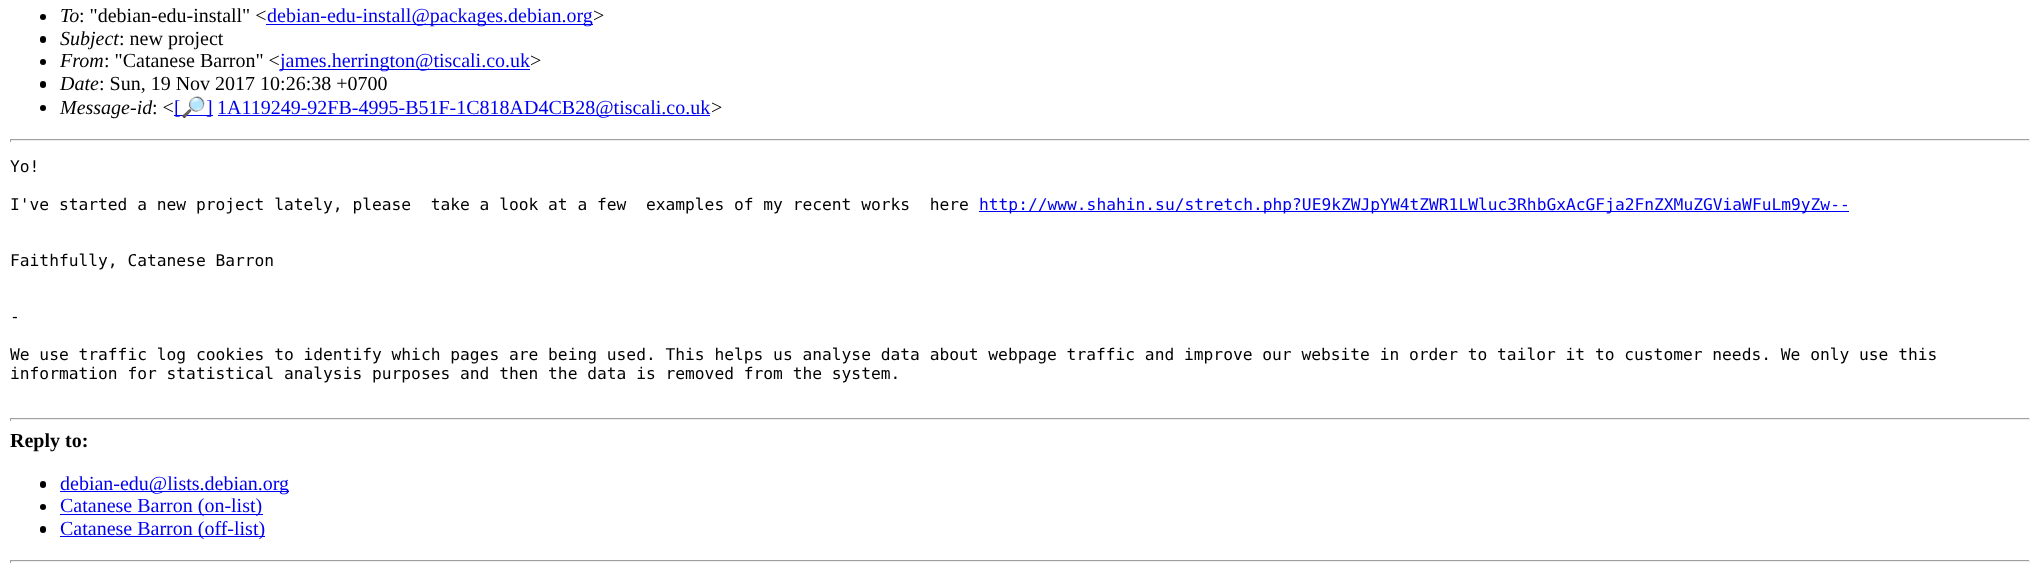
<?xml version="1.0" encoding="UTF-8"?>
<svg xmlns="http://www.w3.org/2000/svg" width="2040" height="563">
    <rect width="100%" height="100%" fill="#FFFFFF"/>
    <circle cx="43" cy="17" r="3" fill="#000000"/>
    <text x="60" y="22" font-family="Liberation Serif" font-size="20" font-style="italic" fill="#000000">To</text>
    <text x="79" y="22" font-family="Liberation Serif" font-size="20" fill="#000000">: "debian-edu-install" &lt;</text>
    <rect x="266" y="24" width="327" height="1" fill="#0000EE"/>
    <text x="267" y="22" font-family="Liberation Serif" font-size="20" fill="#0000EE">debian-edu-install@packages.debian.org</text>
    <text x="593" y="22" font-family="Liberation Serif" font-size="20" fill="#000000">&gt;</text>
    <rect x="40" y="36" width="6" height="7" rx="3" fill="#000000"/>
    <text x="60" y="45" font-family="Liberation Serif" font-size="20" font-style="italic" fill="#000000">Subject</text>
    <text x="119" y="45" font-family="Liberation Serif" font-size="20" fill="#000000">: new project</text>
    <circle cx="43" cy="62" r="3" fill="#000000"/>
    <text x="60" y="67" font-family="Liberation Serif" font-size="20" font-style="italic" fill="#000000">From</text>
    <text x="104" y="67" font-family="Liberation Serif" font-size="20" fill="#000000">: "Catanese Barron" &lt;</text>
    <rect x="280" y="69" width="250" height="1" fill="#0000EE"/>
    <text x="280" y="67" font-family="Liberation Serif" font-size="20" fill="#0000EE">james.herrington@tiscali.co.uk</text>
    <text x="530" y="67" font-family="Liberation Serif" font-size="20" fill="#000000">&gt;</text>
    <rect x="40" y="81" width="6" height="7" rx="3" fill="#000000"/>
    <text x="60" y="90" font-family="Liberation Serif" font-size="20" font-style="italic" fill="#000000">Date</text>
    <text x="99" y="90" font-family="Liberation Serif" font-size="20" fill="#000000">: Sun, 19 Nov 2017 10:26:38 +0700</text>
    <circle cx="43" cy="108" r="3" fill="#000000"/>
    <text x="60" y="114" font-family="Liberation Serif" font-size="20" font-style="italic" fill="#000000">Message-id</text>
    <text x="152" y="114" font-family="Liberation Serif" font-size="20" fill="#000000">: &lt;</text>
    <rect x="174" y="115" width="39" height="1" fill="#0000EE"/>
    <text x="174" y="114" font-family="Liberation Serif" font-size="20" fill="#0000EE">[</text>
    <text x="181" y="114" font-family="Noto Color Emoji" font-size="20" fill="#0000EE">🔎</text>
    <text x="206" y="114" font-family="Liberation Serif" font-size="20" fill="#0000EE">]</text>
    <rect x="218" y="115" width="492" height="1" fill="#0000EE"/>
    <text x="217" y="114" font-family="Liberation Serif" font-size="20" fill="#0000EE">1A119249-92FB-4995-B51F-1C818AD4CB28@tiscali.co.uk</text>
    <text x="711" y="114" font-family="Liberation Serif" font-size="20" fill="#000000">&gt;</text>
    <rect x="10" y="139" width="2020" height="1" fill="#9F9F9F"/>
    <rect x="2029" y="139" width="1" height="3" fill="#EEEEEE"/>
    <rect x="10" y="140" width="2020" height="1" fill="#EEEEEE"/>
    <rect x="10" y="139" width="1" height="3" fill="#9F9F9F"/>
    <text x="10" y="172" font-family="DejaVu Sans Mono" font-size="16.25" fill="#000000">Yo!</text>
    <text x="10" y="210" font-family="DejaVu Sans Mono" font-size="16.25" fill="#000000" xml:space="preserve">I've started a new project lately, please  take a look at a few  examples of my recent works  here</text>
    <rect x="979" y="211" width="870" height="1" fill="#0000EE"/>
    <text x="979" y="210" font-family="DejaVu Sans Mono" font-size="16.25" fill="#0000EE">http://www.shahin.su/stretch.php?UE9kZWJpYW4tZWR1LWluc3RhbGxAcGFja2FnZXMuZGViaWFuLm9yZw--</text>
    <text x="10" y="266" font-family="DejaVu Sans Mono" font-size="16.25" fill="#000000">Faithfully, Catanese Barron</text>
    <text x="10" y="322" font-family="DejaVu Sans Mono" font-size="16.25" fill="#000000">-</text>
    <text font-family="DejaVu Sans Mono" font-size="16.25" fill="#000000">
        <tspan x="10" y="360">We use traffic log cookies to identify which pages are being used. This helps us analyse data about webpage traffic and improve our website in order to tailor it to customer needs. We only use this</tspan>
        <tspan x="10" y="379">information for statistical analysis purposes and then the data is removed from the system.</tspan>
    </text>
    <rect x="10" y="418" width="2020" height="1" fill="#9F9F9F"/>
    <rect x="2029" y="418" width="1" height="3" fill="#EEEEEE"/>
    <rect x="10" y="419" width="2020" height="1" fill="#EEEEEE"/>
    <rect x="10" y="418" width="1" height="3" fill="#9F9F9F"/>
    <text x="10" y="447" font-family="Liberation Serif" font-size="20" font-weight="700" fill="#000000">Reply to:</text>
    <rect x="40" y="481" width="6" height="7" rx="3" fill="#000000"/>
    <rect x="60" y="491" width="229" height="1" fill="#0000EE"/>
    <text x="60" y="490" font-family="Liberation Serif" font-size="20" fill="#0000EE">debian-edu@lists.debian.org</text>
    <circle cx="43" cy="507" r="3" fill="#000000"/>
    <rect x="60" y="514" width="203" height="1" fill="#0000EE"/>
    <text x="60" y="512" font-family="Liberation Serif" font-size="20" fill="#0000EE">Catanese Barron (on-list)</text>
    <rect x="40" y="526" width="6" height="7" rx="3" fill="#000000"/>
    <rect x="60" y="536" width="205" height="1" fill="#0000EE"/>
    <text x="60" y="535" font-family="Liberation Serif" font-size="20" fill="#0000EE">Catanese Barron (off-list)</text>
    <rect x="10" y="560" width="2020" height="1" fill="#9F9F9F"/>
    <rect x="2029" y="560" width="1" height="3" fill="#EEEEEE"/>
    <rect x="10" y="561" width="2020" height="1" fill="#EEEEEE"/>
    <rect x="10" y="560" width="1" height="3" fill="#9F9F9F"/>
</svg>
